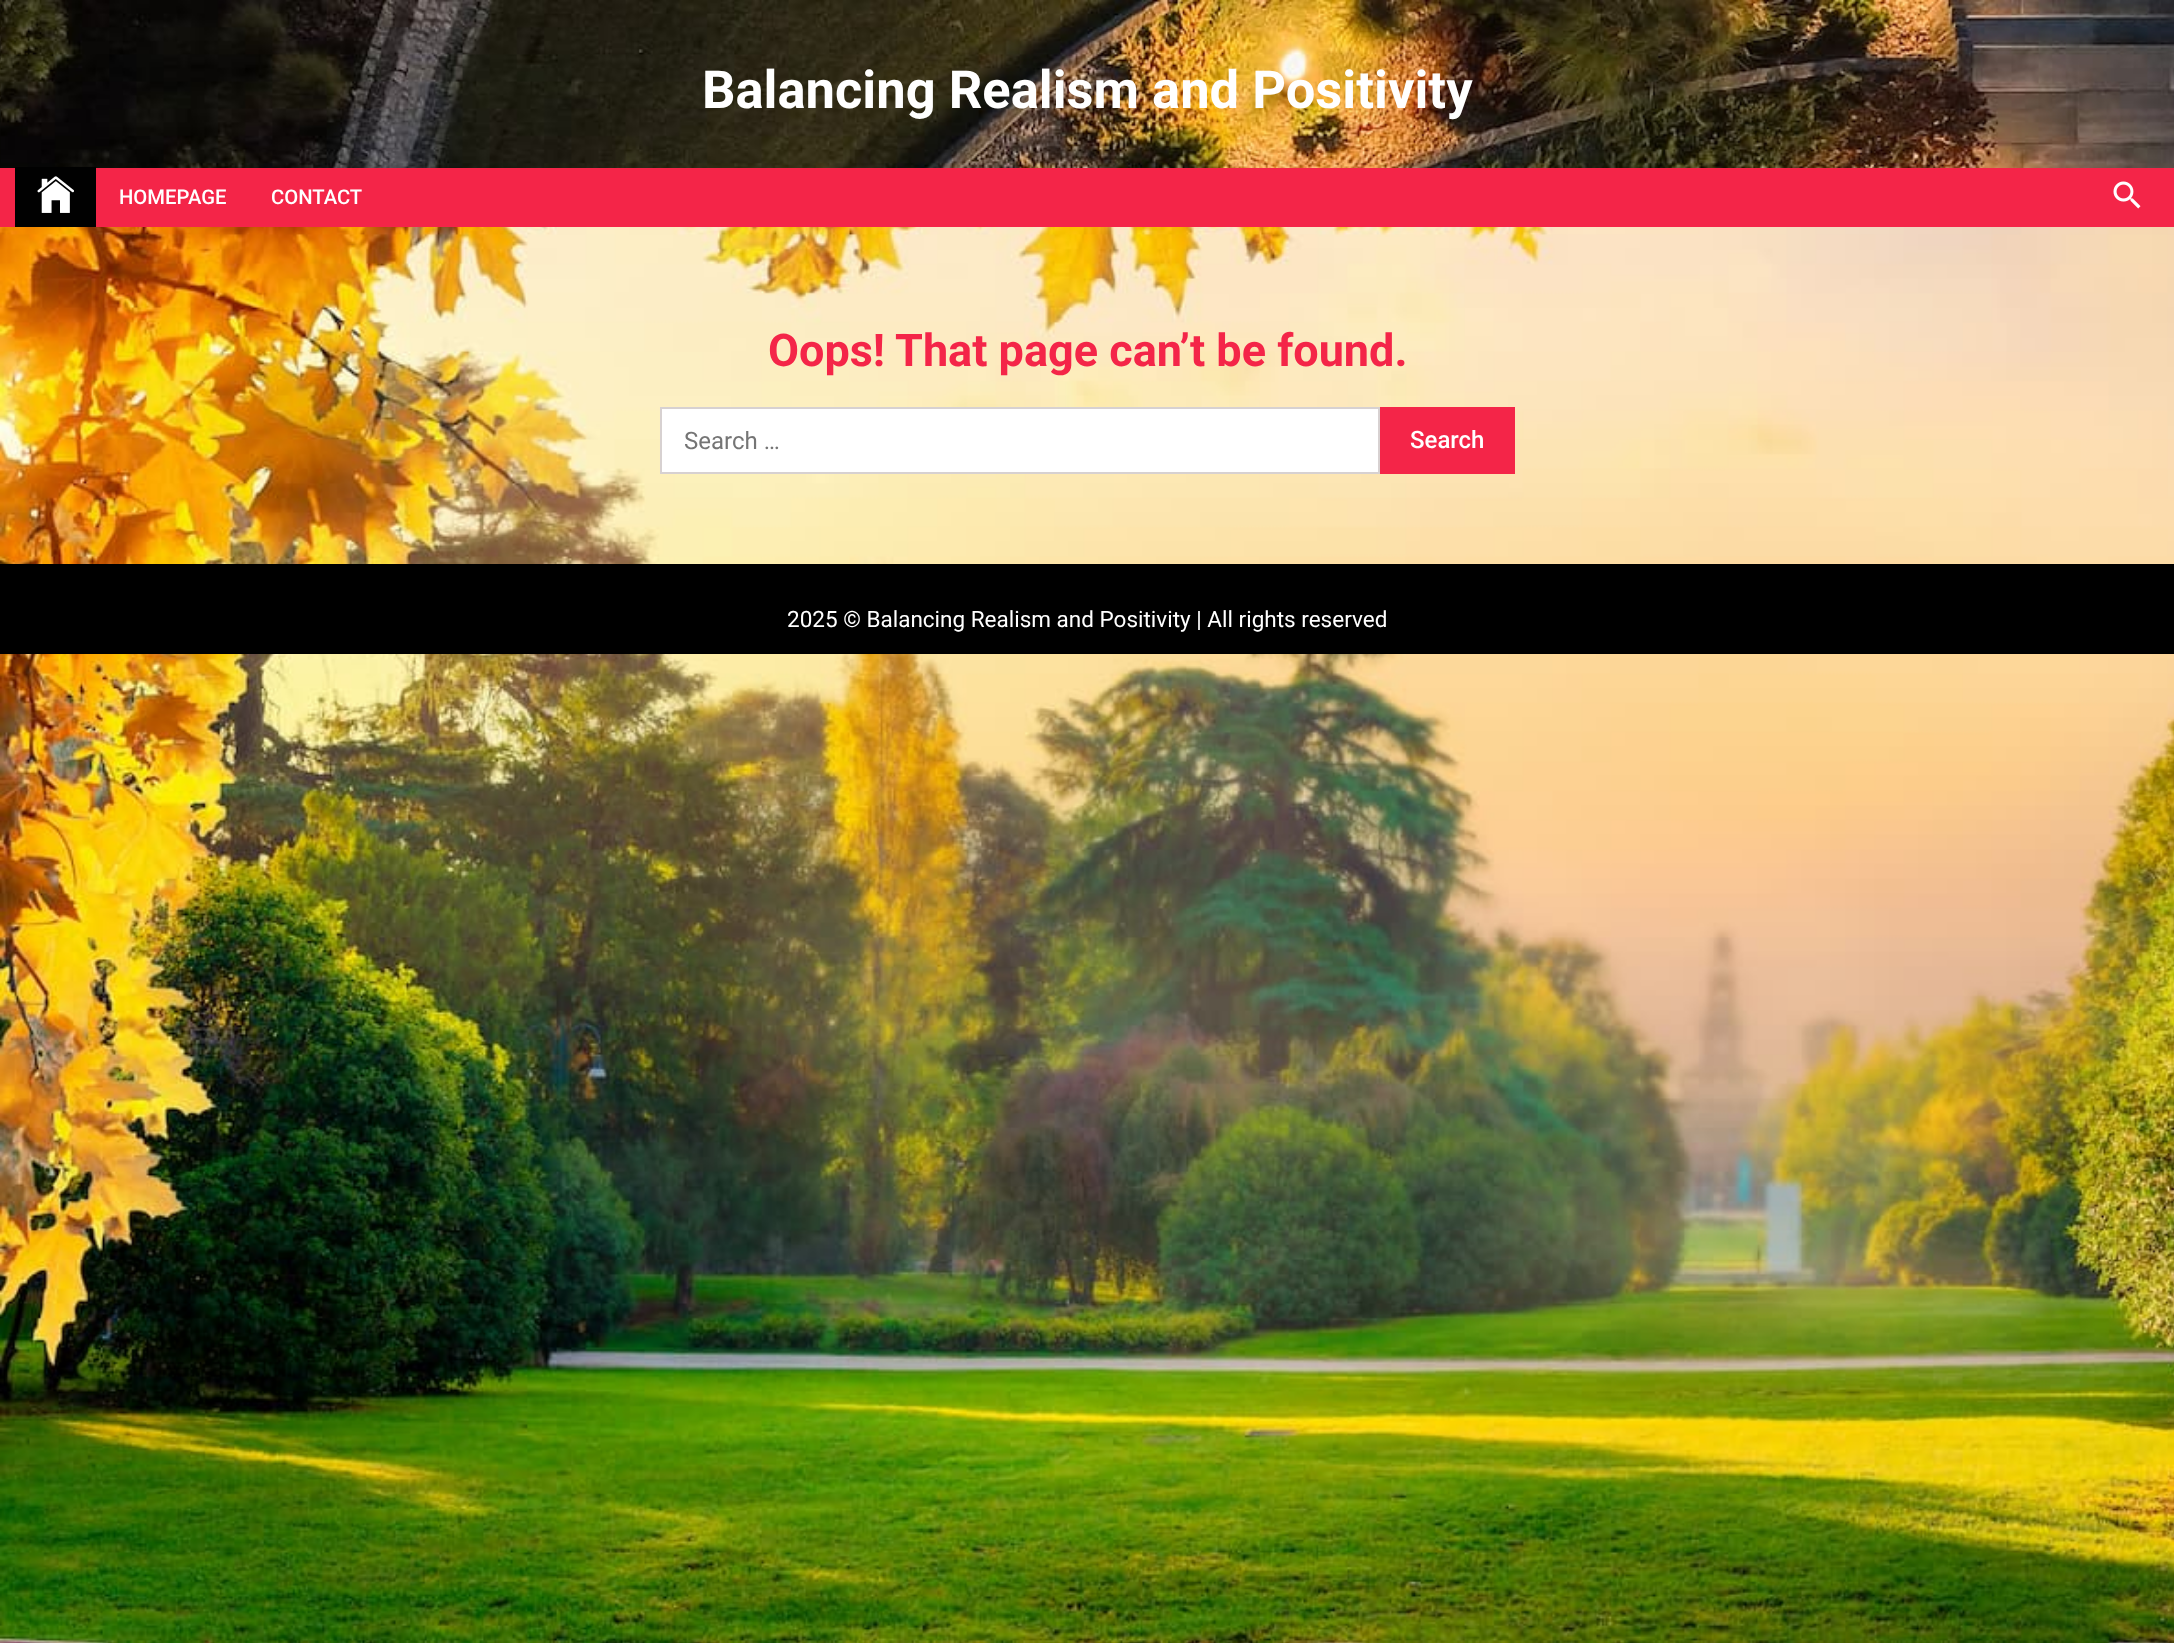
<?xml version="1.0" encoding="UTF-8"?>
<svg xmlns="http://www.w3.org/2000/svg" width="2174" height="1643">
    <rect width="100%" height="100%" fill="#FFFFFF"/>
    <image x="0" y="227" width="2174" height="1416" href="img_01.png"/>
    <image x="0" y="0" width="2174" height="168" href="img_02.png"/>
    <text x="702" y="108" font-family="Roboto" font-size="52.5" font-weight="700" fill="#FFFFFF">Balancing Realism and Positivity</text>
    <rect x="0" y="168" width="2174" height="59" fill="#F42548"/>
    <rect x="15" y="167" width="81" height="60" fill="#010101"/>
    <image x="37" y="176" width="37" height="37" href="img_03.png"/>
    <text x="119" y="204" font-family="Roboto" font-size="20.25" font-weight="500" fill="#FFFFFF">HOMEPAGE</text>
    <text x="271" y="204" font-family="Roboto" font-size="20.25" font-weight="500" fill="#FFFFFF">CONTACT</text>
    <image x="2113" y="181" width="28" height="28" href="img_04.png"/>
    <text x="768" y="366" font-family="Roboto" font-size="45" font-weight="700" fill="#F42548">Oops! That page can’t be found.</text>
    <rect x="661" y="408" width="718" height="65" fill="#FFFFFF" stroke="#D7D1D1" stroke-width="2"/>
    <text x="684" y="449" font-family="Roboto" font-size="24" fill="#757575">Search …</text>
    <rect x="1380" y="407" width="135" height="67" fill="#F42548"/>
    <text x="1410" y="448" font-family="Roboto" font-size="24" font-weight="500" fill="#FFFFFF">Search</text>
    <rect x="0" y="564" width="2174" height="90" fill="#000000"/>
    <text x="787" y="627" font-family="Roboto" font-size="22.5" fill="#FFFFFF">2025 © Balancing Realism and Positivity | All rights reserved</text>
</svg>
